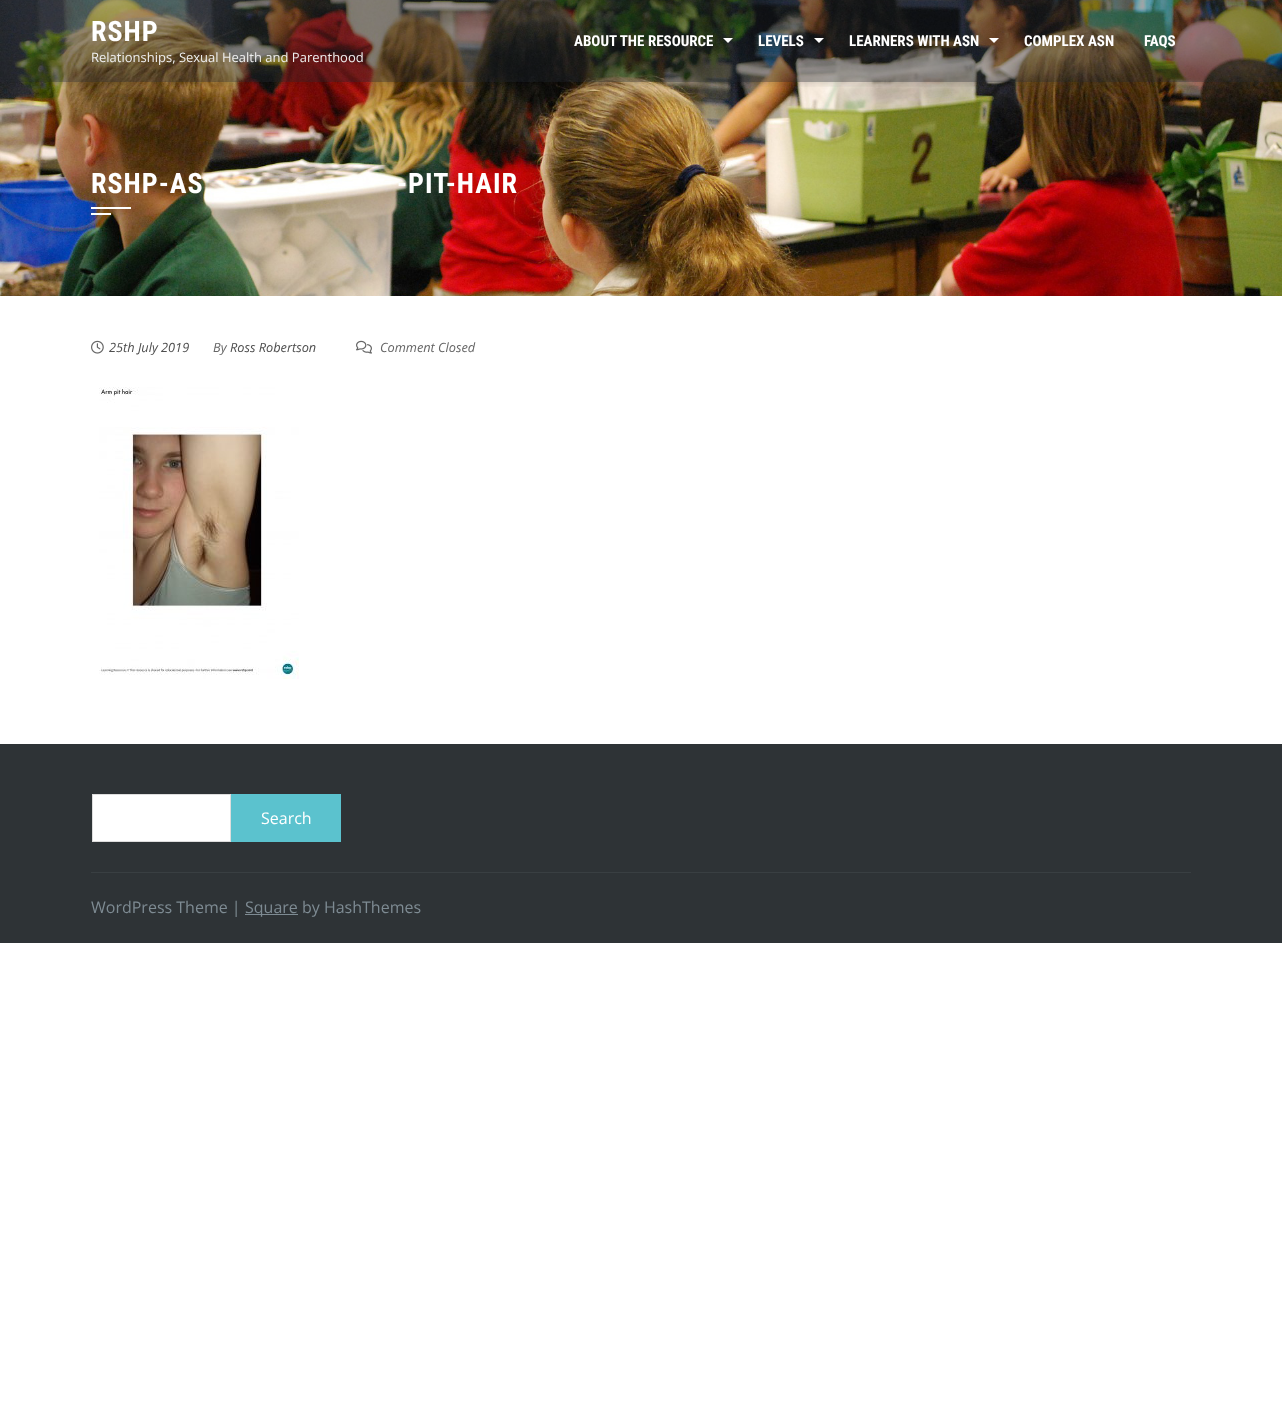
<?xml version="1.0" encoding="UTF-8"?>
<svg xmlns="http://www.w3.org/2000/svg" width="1282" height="1409">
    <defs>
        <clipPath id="clip1"><rect x="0" y="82" width="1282" height="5"/></clipPath>
        <filter id="blur1" x="-50%" y="-200%" width="200%" height="500%"><feGaussianBlur stdDeviation="4"/></filter>
    </defs>
    <rect width="100%" height="100%" fill="#FFFFFF"/>
    <image x="0" y="0" width="1282" height="296" href="img_01.png"/>
    <g clip-path="url(#clip1)">
        <rect x="0" y="0" width="1282" height="82" fill="#000000" fill-opacity="0.2" filter="url(#blur1)"/>
    </g>
    <rect x="0" y="0" width="1282" height="82" fill="#1E242A" fill-opacity="0.4"/>
    <text x="91" y="41" font-family="Roboto Condensed" font-size="28" font-weight="700" letter-spacing="1" fill="#FFFFFF">RSHP</text>
    <text x="91" y="62" font-family="Open Sans" font-size="13" fill="#EEEEEE">Relationships, Sexual Health and Parenthood</text>
    <text x="574" y="46" font-family="Roboto Condensed" font-size="15" font-weight="700" fill="#FFFFFF">ABOUT THE RESOURCE</text>
    <path d="M 723 38 H 733 L 728 43 Z" fill="#FFFFFF"/>
    <text x="758" y="46" font-family="Roboto Condensed" font-size="15" font-weight="700" fill="#FFFFFF">LEVELS</text>
    <path d="M 814 38 H 824 L 819 43 Z" fill="#FFFFFF"/>
    <text x="849" y="46" font-family="Roboto Condensed" font-size="15" font-weight="700" fill="#FFFFFF">LEARNERS WITH ASN</text>
    <path d="M 989 38 H 999 L 994 43 Z" fill="#FFFFFF"/>
    <text x="1024" y="46" font-family="Roboto Condensed" font-size="15" font-weight="700" fill="#FFFFFF">COMPLEX ASN</text>
    <text x="1144" y="46" font-family="Roboto Condensed" font-size="15" font-weight="700" fill="#FFFFFF">FAQS</text>
    <text x="91" y="193" font-family="Roboto Condensed" font-size="28" font-weight="700" letter-spacing="1" fill="#FFFFFF">RSHP-AS</text>
    <text x="397" y="193" font-family="Roboto Condensed" font-size="28" font-weight="700" letter-spacing="1" fill="#FFFFFF">-PIT-HAIR</text>
    <rect x="91" y="207" width="40" height="2" fill="#FFFFFF"/>
    <rect x="91" y="213" width="20" height="2" fill="#FFFFFF"/>
    <image x="91" y="340" width="13" height="14" href="img_02.png"/>
    <text x="109" y="352" font-family="Open Sans" font-size="12.75" font-style="italic" fill="#4E4E4E">25th July 2019</text>
    <text x="213" y="352" font-family="Open Sans" font-size="12.75" font-style="italic" fill="#666666">By</text>
    <text x="230" y="352" font-family="Open Sans" font-size="12.75" font-style="italic" fill="#4E4E4E">Ross Robertson</text>
    <image x="356" y="340" width="16" height="14" href="img_03.png"/>
    <text x="380" y="352" font-family="Open Sans" font-size="12.75" font-style="italic" fill="#666666">Comment Closed</text>
    <image x="99" y="387" width="200" height="292" href="img_04.png"/>
    <rect x="0" y="744" width="1282" height="199" fill="#2E3336"/>
    <rect x="91" y="872" width="1100" height="1" fill="#393F42"/>
    <rect x="92.5" y="794.5" width="138" height="47" fill="#FFFFFF" stroke="#DDDDDD"/>
    <rect x="231" y="794" width="110" height="48" fill="#5BC2CE"/>
    <text x="261" y="824" font-family="Open Sans" font-size="16" fill="#FFFFFF">Search</text>
    <text x="91" y="913" font-family="Open Sans" font-size="16" fill="#7E8B93">WordPress Theme |</text>
    <rect x="245" y="914" width="53" height="1" fill="#7E8B93"/>
    <text x="245" y="913" font-family="Open Sans" font-size="16" fill="#7E8B93">Square by HashThemes</text>
</svg>
